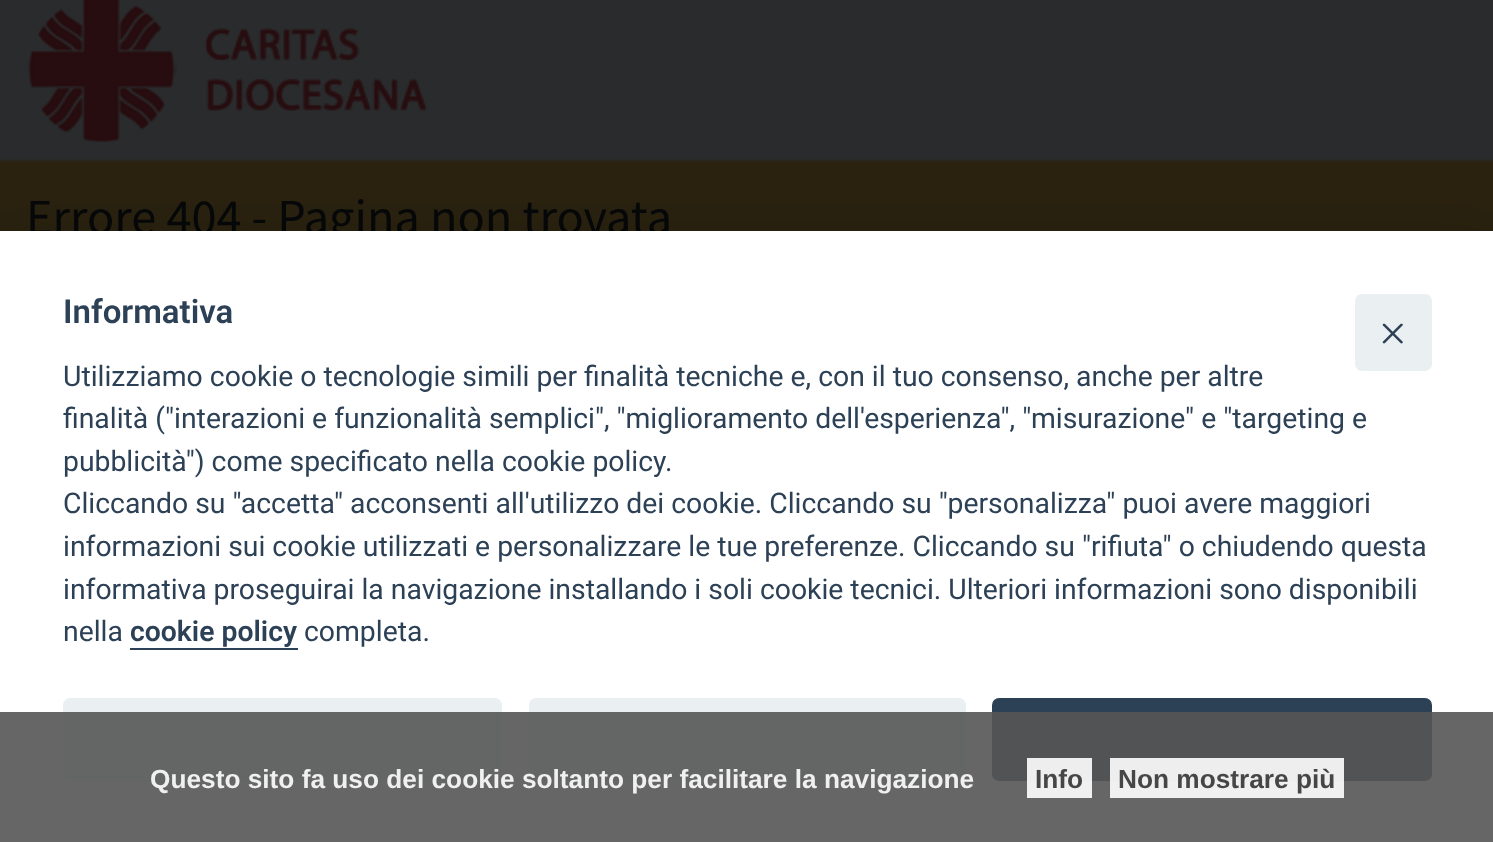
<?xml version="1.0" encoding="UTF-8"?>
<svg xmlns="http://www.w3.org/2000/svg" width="1493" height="842">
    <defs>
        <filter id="blur1" x="-50%" y="-200%" width="200%" height="500%"><feGaussianBlur stdDeviation="29.5"/></filter>
    </defs>
    <rect width="100%" height="100%" fill="#2A2B2D"/>
    <image x="27" y="0" width="401" height="142" href="img_01.png"/>
    <image x="0" y="159" width="1493" height="72" href="img_02.png"/>
    <text x="26" y="234" font-family="Source Sans Pro" font-size="50.4" fill="#050708">Errore 404 - Pagina non trovata</text>
    <rect x="0" y="250" width="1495" height="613" fill="#020203" fill-opacity="0.28" filter="url(#blur1)"/>
    <rect x="0" y="231" width="1493" height="611" fill="#FFFFFF"/>
    <rect x="1355" y="294" width="77" height="77" rx="7" fill="#EAEFF2"/>
    <path d="M 1402.5 324 C 1403 324.5 1403 325 1402.5 325.5 L 1385 343 C 1384.5 343.5 1383.5 343.5 1383 343 C 1382.5 342.5 1382.5 342 1383 341.5 L 1400.5 324 C 1401 323.5 1402 323.5 1402.5 324 Z" fill="#2D4156"/>
    <path d="M 1383 324 C 1383.5 323.5 1384.5 323.5 1385 324 L 1402.5 341.5 C 1403 342 1403 342.5 1402.5 343 C 1402 343.5 1401 343.5 1400.5 343 L 1383 325.5 C 1382.5 325 1382.5 324.5 1383 324 Z" fill="#2D4156"/>
    <text x="63" y="323" font-family="Roboto" font-size="33" font-weight="600" fill="#2D4156">Informativa</text>
    <text font-family="Roboto" font-size="28.35" fill="#2D4156">
        <tspan x="63" y="386">Utilizziamo cookie o tecnologie simili per finalità tecniche e, con il tuo consenso, anche per altre</tspan>
        <tspan x="63" y="428">finalità ("interazioni e funzionalità semplici", "miglioramento dell'esperienza", "misurazione" e "targeting e</tspan>
        <tspan x="63" y="471">pubblicità") come specificato nella cookie policy.</tspan>
        <tspan x="63" y="513">Cliccando su "accetta" acconsenti all'utilizzo dei cookie. Cliccando su "personalizza" puoi avere maggiori</tspan>
        <tspan x="63" y="556">informazioni sui cookie utilizzati e personalizzare le tue preferenze. Cliccando su "rifiuta" o chiudendo questa</tspan>
        <tspan x="63" y="599">informativa proseguirai la navigazione installando i soli cookie tecnici. Ulteriori informazioni sono disponibili</tspan>
        <tspan x="63" y="641">nella</tspan>
    </text>
    <text x="130" y="641" font-family="Roboto" font-size="28.35" font-weight="600" fill="#2D4156">cookie policy</text>
    <rect x="130" y="648" width="168" height="2" fill="#2D4156"/>
    <text x="304" y="641" font-family="Roboto" font-size="28.35" fill="#2D4156">completa.</text>
    <rect x="63" y="698" width="439" height="83" rx="7" fill="#EAEFF2"/>
    <rect x="529" y="698" width="437" height="83" rx="7" fill="#EAEFF2"/>
    <rect x="992" y="698" width="440" height="83" rx="7" fill="#2D4156"/>
    <rect x="0" y="712" width="1493" height="130" fill="#555555" fill-opacity="0.9"/>
    <text x="150" y="788" font-family="Liberation Sans" font-size="26.25" font-weight="700" fill="#F0F0F0">Questo sito fa uso dei cookie soltanto per facilitare la navigazione</text>
    <rect x="1027" y="758" width="65" height="40" fill="#FFFFFF" fill-opacity="0.9"/>
    <text x="1035" y="788" font-family="Liberation Sans" font-size="26.25" font-weight="700" fill="#464646">Info</text>
    <rect x="1110" y="758" width="234" height="40" fill="#FFFFFF" fill-opacity="0.9"/>
    <text x="1118" y="788" font-family="Liberation Sans" font-size="26.25" font-weight="700" fill="#464646">Non mostrare più</text>
</svg>
